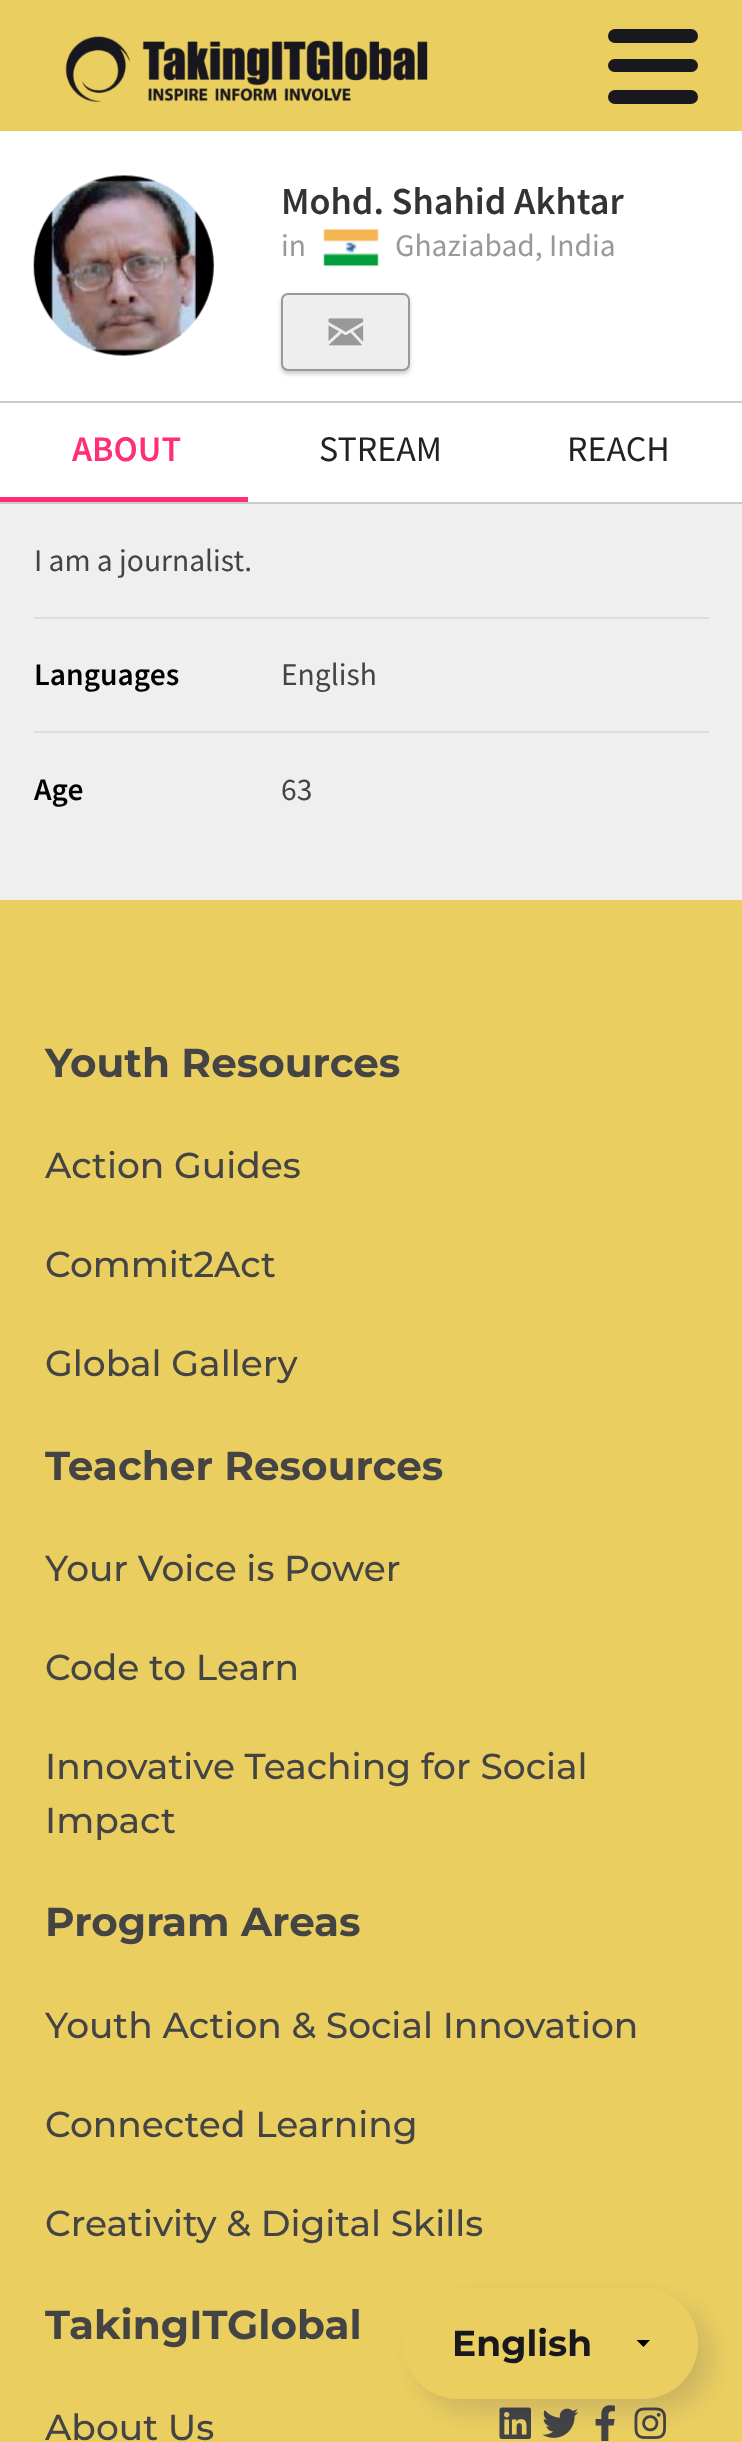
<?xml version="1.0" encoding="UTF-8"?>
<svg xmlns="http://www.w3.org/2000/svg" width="742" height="2442">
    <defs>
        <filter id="blur1" x="-50%" y="-200%" width="200%" height="500%"><feGaussianBlur stdDeviation="2"/></filter>
        <filter id="blur2" x="-50%" y="-200%" width="200%" height="500%"><feGaussianBlur stdDeviation="13.5"/></filter>
    </defs>
    <rect width="100%" height="100%" fill="#FFFFFF"/>
    <image x="33" y="175" width="181" height="181" href="img_01.png"/>
    <text x="281" y="214" font-family="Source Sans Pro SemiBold" font-size="38.25" font-weight="600" fill="#333333">Mohd. Shahid Akhtar</text>
    <text x="281" y="256" font-family="Source Sans Pro" font-size="31.5" fill="#999999">in</text>
    <image x="323" y="229" width="56" height="37" href="img_02.png"/>
    <text x="395" y="256" font-family="Source Sans Pro" font-size="31.5" fill="#999999">Ghaziabad, India</text>
    <rect x="281" y="295" width="129" height="79" rx="7" fill="#000000" fill-opacity="0.2" filter="url(#blur1)"/>
    <rect x="282" y="294" width="127" height="76" rx="6" fill="#EEEEEE" stroke="#999999" stroke-width="2"/>
    <image x="328" y="318" width="36" height="28" href="img_03.png"/>
    <rect x="0" y="401" width="742" height="2" fill="#CCCCCC"/>
    <rect x="0" y="502" width="742" height="2" fill="#CCCCCC"/>
    <rect x="0" y="497" width="248" height="5" fill="#FF2E77"/>
    <text x="72" y="461" font-family="Source Sans Pro SemiBold" font-size="36" font-weight="600" fill="#FF2E77">ABOUT</text>
    <text x="319" y="461" font-family="Source Sans Pro" font-size="36" fill="#222222">STREAM</text>
    <text x="567" y="461" font-family="Source Sans Pro" font-size="36" fill="#222222">REACH</text>
    <rect x="0" y="504" width="742" height="396" fill="#EFEFEF"/>
    <text x="34" y="571" font-family="Source Sans Pro" font-size="31.5" fill="#444444">I am a journalist.</text>
    <rect x="34" y="617" width="675" height="2" fill="#DDDDDD"/>
    <text x="34" y="685" font-family="Source Sans Pro SemiBold" font-size="31.5" font-weight="600" fill="#000000">Languages</text>
    <text x="281" y="685" font-family="Source Sans Pro" font-size="31.5" fill="#444444">English</text>
    <rect x="34" y="731" width="675" height="2" fill="#DDDDDD"/>
    <text x="34" y="800" font-family="Source Sans Pro SemiBold" font-size="31.5" font-weight="600" fill="#000000">Age</text>
    <text x="281" y="800" font-family="Source Sans Pro" font-size="31.5" fill="#444444">63</text>
    <rect x="0" y="0" width="742" height="131" fill="#EACF60"/>
    <image x="65" y="36" width="363" height="67" href="img_04.png"/>
    <rect x="608" y="29" width="90" height="14" rx="7" fill="#18181E"/>
    <rect x="608" y="59" width="90" height="13" rx="6.5" fill="#18181E"/>
    <rect x="608" y="90" width="90" height="14" rx="7" fill="#18181E"/>
    <rect x="0" y="900" width="742" height="1542" fill="#EACF60"/>
    <image x="499" y="2407" width="32" height="32" href="img_05.png"/>
    <image x="542" y="2408" width="36" height="30" href="img_06.png"/>
    <image x="595" y="2405" width="20" height="36" href="img_07.png"/>
    <image x="634" y="2407" width="32" height="32" href="img_08.png"/>
    <rect x="416" y="2302" width="295" height="110" rx="55" fill="#020067" fill-opacity="0.13" filter="url(#blur2)"/>
    <rect x="403" y="2288" width="295" height="111" rx="55.5" fill="#EACF60"/>
    <path d="M 650 2340 L 643.5 2347 L 636.5 2340 Z" fill="#000000"/>
    <text x="452" y="2356" font-family="Montserrat" font-size="36" font-weight="700" fill="#18181E">English</text>
    <text x="45" y="1077" font-family="Montserrat" font-size="40.5" font-weight="700" fill="#444444">Youth Resources</text>
    <text x="45" y="1178" font-family="Montserrat" font-size="36" font-weight="500" fill="#444444">Action Guides</text>
    <text x="45" y="1277" font-family="Montserrat" font-size="36" font-weight="500" fill="#444444">Commit2Act</text>
    <text x="45" y="1376" font-family="Montserrat" font-size="36" font-weight="500" fill="#444444">Global Gallery</text>
    <text x="45" y="1480" font-family="Montserrat" font-size="40.5" font-weight="700" fill="#444444">Teacher Resources</text>
    <text x="45" y="1581" font-family="Montserrat" font-size="36" font-weight="500" fill="#444444">Your Voice is Power</text>
    <text x="45" y="1680" font-family="Montserrat" font-size="36" font-weight="500" fill="#444444">Code to Learn</text>
    <text font-family="Montserrat" font-size="36" font-weight="500" fill="#444444">
        <tspan x="45" y="1779">Innovative Teaching for Social</tspan>
        <tspan x="45" y="1833">Impact</tspan>
    </text>
    <text x="45" y="1936" font-family="Montserrat" font-size="40.5" font-weight="700" fill="#444444">Program Areas</text>
    <text x="45" y="2038" font-family="Montserrat" font-size="36" font-weight="500" fill="#444444">Youth Action &amp; Social Innovation</text>
    <text x="45" y="2137" font-family="Montserrat" font-size="36" font-weight="500" fill="#444444">Connected Learning</text>
    <text x="45" y="2236" font-family="Montserrat" font-size="36" font-weight="500" fill="#444444">Creativity &amp; Digital Skills</text>
    <text x="45" y="2339" font-family="Montserrat" font-size="40.5" font-weight="700" fill="#444444">TakingITGlobal</text>
    <text x="45" y="2440" font-family="Montserrat" font-size="36" font-weight="500" fill="#444444">About Us</text>
</svg>
